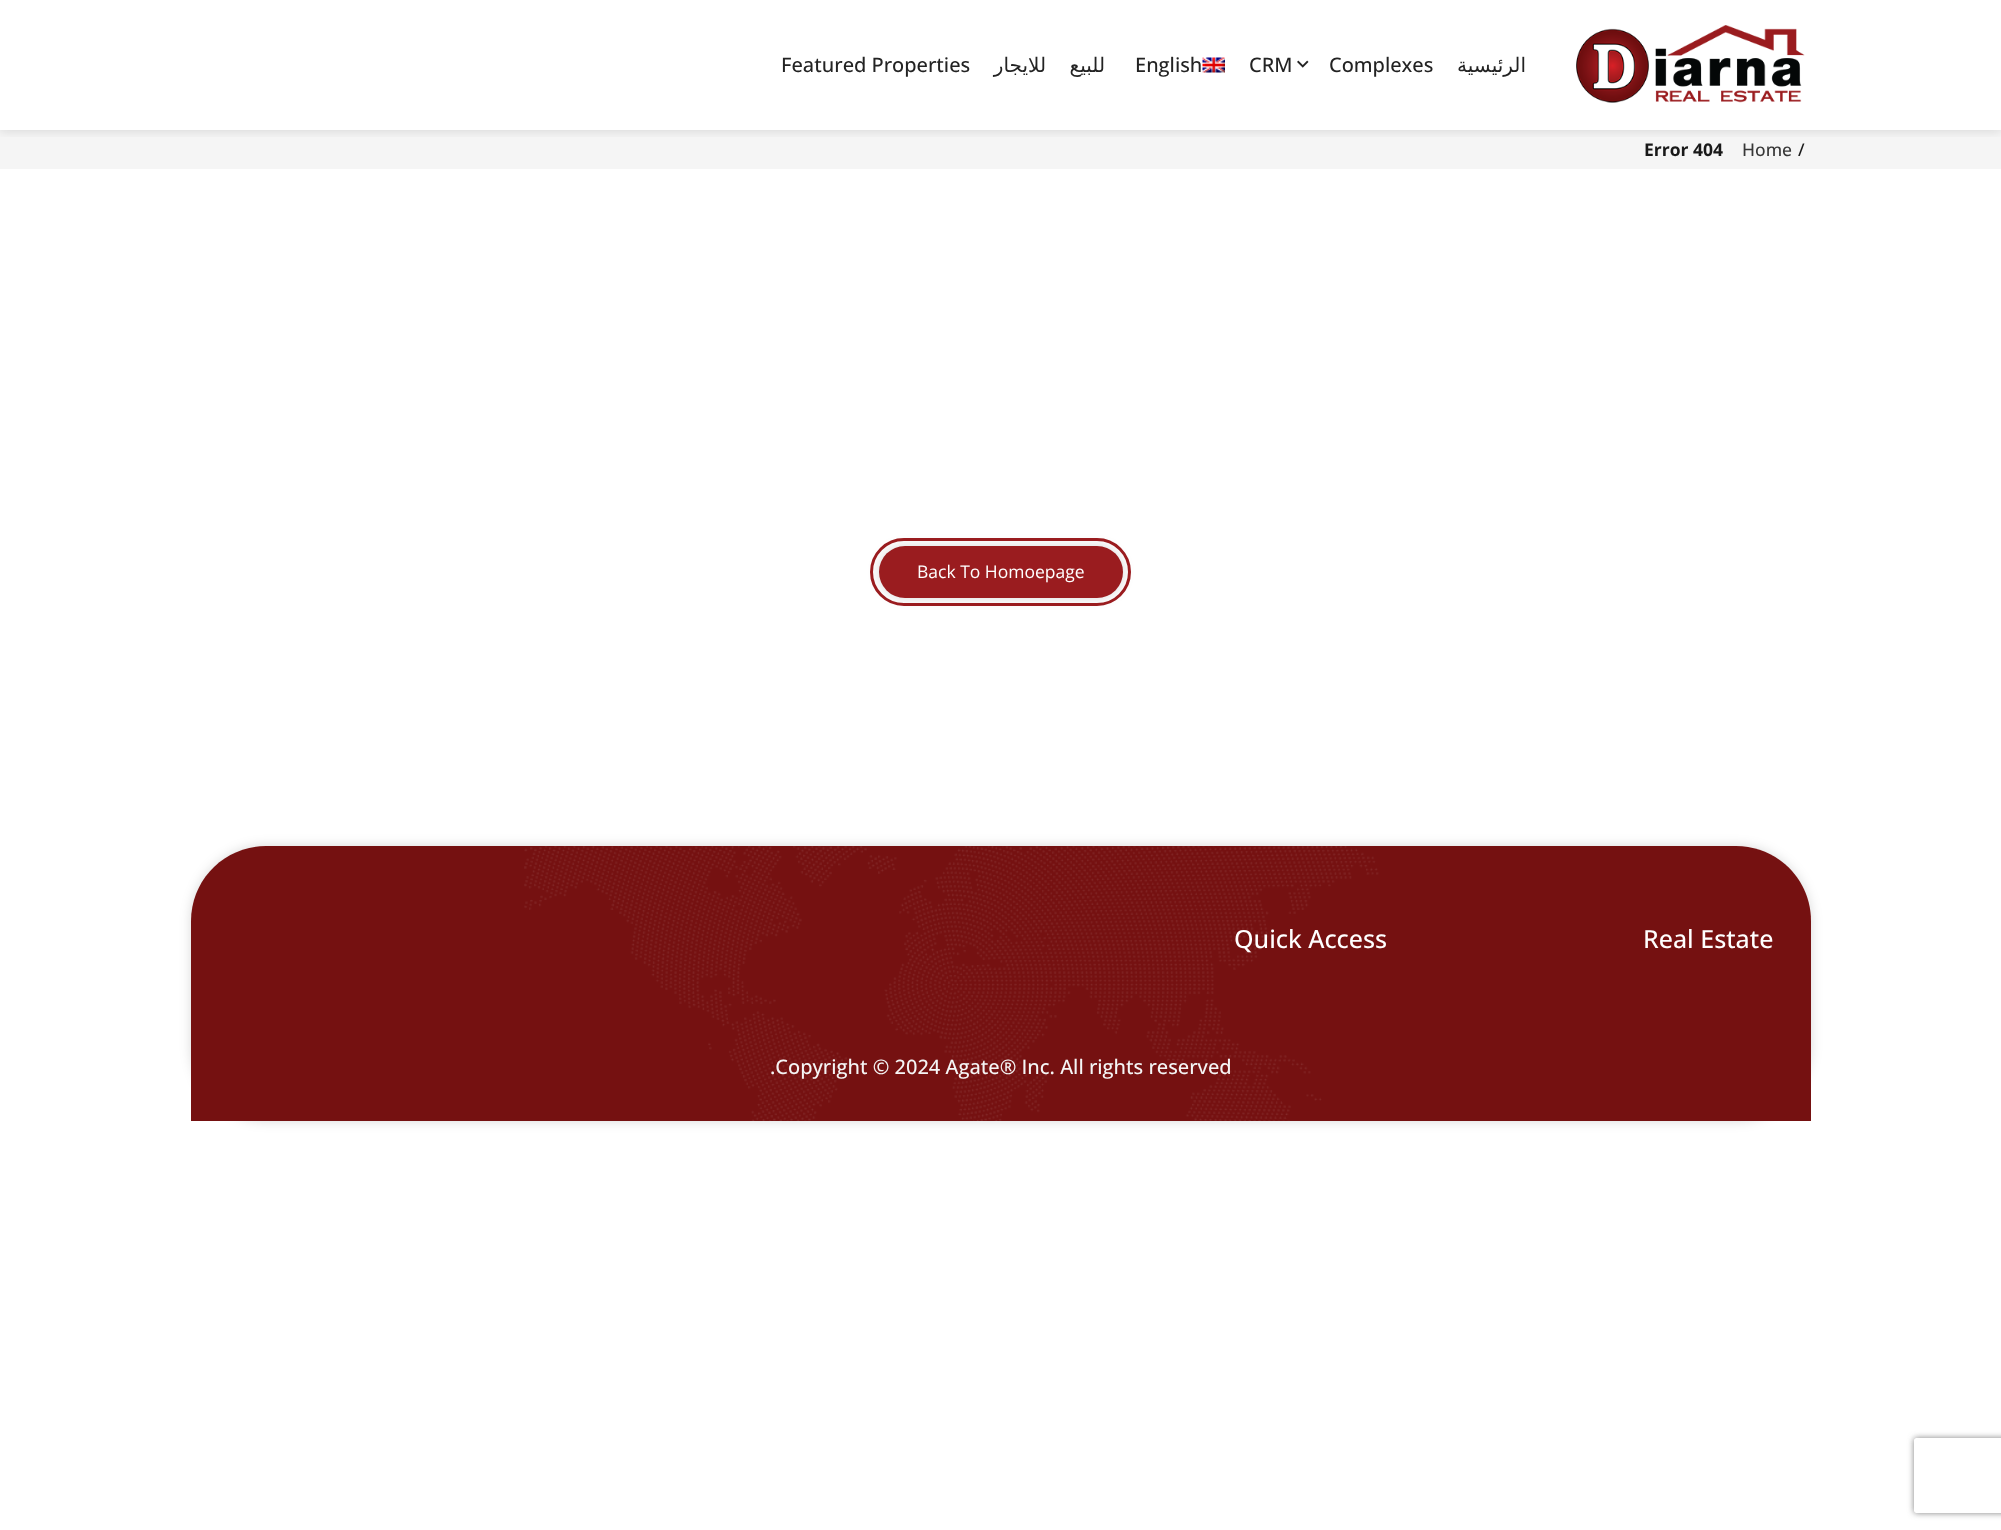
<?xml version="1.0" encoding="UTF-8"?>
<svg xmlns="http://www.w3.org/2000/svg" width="2001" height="1530">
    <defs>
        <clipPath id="clip1"><rect x="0" y="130" width="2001" height="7"/></clipPath>
        <filter id="blur1" x="-50%" y="-200%" width="200%" height="500%"><feGaussianBlur stdDeviation="6"/></filter>
        <clipPath id="clip2"><path d="M 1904 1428 H 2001 V 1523 H 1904 Z M 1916.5 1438 H 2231.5 C 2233 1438 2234 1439 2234 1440.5 V 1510.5 C 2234 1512 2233 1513 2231.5 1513 H 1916.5 C 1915 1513 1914 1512 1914 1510.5 V 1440.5 C 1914 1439 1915 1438 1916.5 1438 Z" clip-rule="evenodd"/></clipPath>
        <filter id="blur2" x="-50%" y="-200%" width="200%" height="500%"><feGaussianBlur stdDeviation="3"/></filter>
    </defs>
    <rect width="100%" height="100%" fill="#FFFFFF"/>
    <rect x="0" y="130" width="2001" height="39" fill="#F5F5F5"/>
    <g clip-path="url(#clip1)">
        <rect x="0" y="0" width="2001" height="130" fill="#000000" fill-opacity="0.15" filter="url(#blur1)"/>
    </g>
    <text x="781" y="72" font-family="Open Sans" font-size="20" font-weight="500" fill="#232323">Featured Properties</text>
    <text x="1046" y="72" font-family="DejaVu Sans" font-size="20" direction="rtl" fill="#232323">للايجار</text>
    <text x="1105" y="72" font-family="DejaVu Sans" font-size="20" direction="rtl" fill="#232323">للبيع</text>
    <text x="1135" y="72" font-family="Open Sans" font-size="20" font-weight="500" fill="#232323">English</text>
    <image x="1202" y="57" width="23" height="16" href="img_01.png"/>
    <text x="1249" y="72" font-family="Open Sans" font-size="20" font-weight="500" fill="#232323">CRM</text>
    <image x="1297" y="60" width="12" height="8" href="img_02.png"/>
    <text x="1329" y="72" font-family="Open Sans" font-size="20" font-weight="500" fill="#232323">Complexes</text>
    <text x="1526" y="72" font-family="DejaVu Sans" font-size="20" direction="rtl" fill="#232323">الرئيسية</text>
    <image x="1576" y="25" width="229" height="78" href="img_03.png"/>
    <text x="1644" y="156" font-family="Open Sans" font-size="17.5" font-weight="700" fill="#191919">Error 404</text>
    <text x="1742" y="156" font-family="Open Sans" font-size="17.5" font-weight="500" fill="#373737">Home</text>
    <text x="1798" y="156" font-family="Open Sans" font-size="17.5" font-weight="500" fill="#191919">/</text>
    <rect x="879" y="546" width="244" height="52" rx="26" fill="#000000" fill-opacity="0.15" filter="url(#blur1)"/>
    <rect x="879" y="546" width="244" height="52" rx="26" fill="#9A1C1F"/>
    <rect x="871.5" y="539.5" width="258" height="65" rx="32.5" fill="none" stroke="#9A1C1F" stroke-width="3"/>
    <text x="917" y="578" font-family="Open Sans" font-size="17.5" fill="#FFFFFF">Back To Homoepage</text>
    <rect x="191" y="846" width="1620" height="275" rx="75" fill="#000000" fill-opacity="0.15" filter="url(#blur1)"/>
    <path d="M 266 846 H 1736 C 1777.5 846 1811 879.5 1811 921 V 1121 H 191 V 921 C 191 879.5 224.5 846 266 846 Z" fill="#751111"/>
    <text x="1234" y="948" font-family="Open Sans" font-size="25" font-weight="500" fill="#FFFFFF">Quick Access</text>
    <text x="770" y="1074" font-family="Open Sans" font-size="20" font-weight="500" fill="#F5F5F5">.Copyright © 2024 Agate® Inc. All rights reserved</text>
    <image x="524" y="846" width="855" height="275" href="img_04.png"/>
    <text x="1643" y="948" font-family="Open Sans" font-size="25" font-weight="500" fill="#FFFFFF">Real Estate</text>
    <g clip-path="url(#clip2)">
        <rect x="1914" y="1438" width="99" height="75" rx="2.5" fill="#808080" filter="url(#blur2)"/>
    </g>
</svg>
